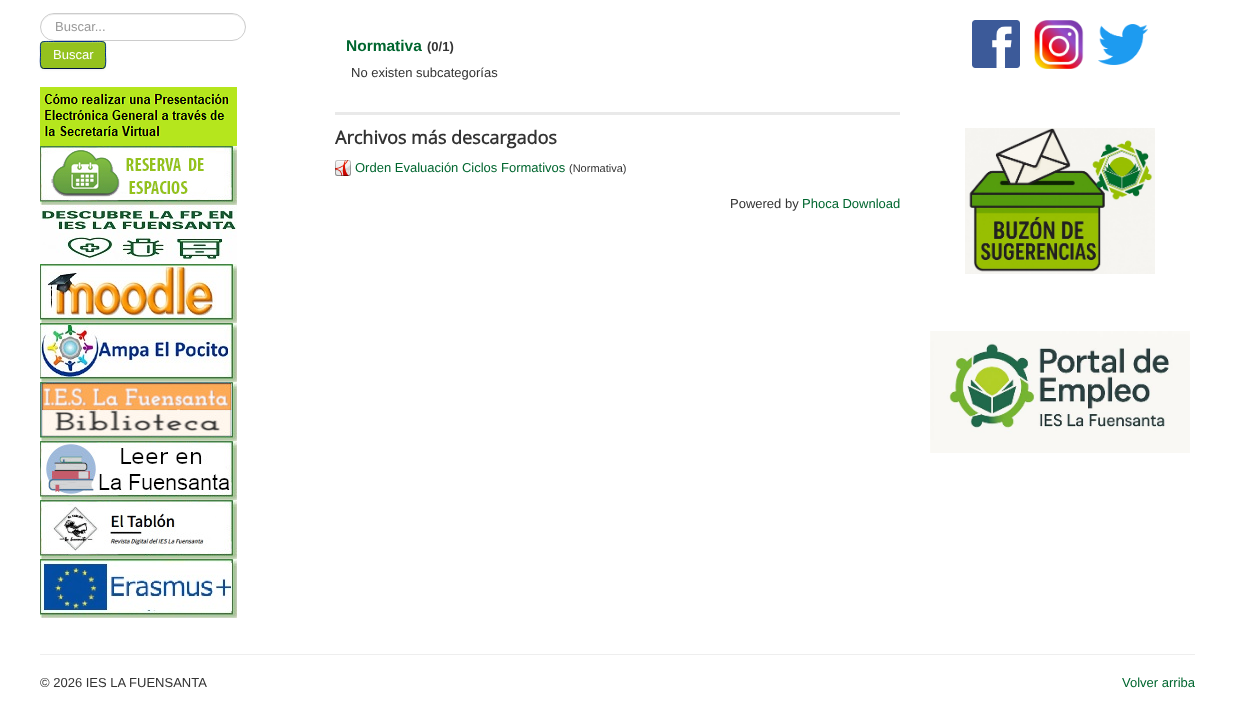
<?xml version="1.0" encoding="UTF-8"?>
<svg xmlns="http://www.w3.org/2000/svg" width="1235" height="708">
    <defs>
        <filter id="blur1" x="-50%" y="-200%" width="200%" height="500%"><feGaussianBlur stdDeviation="1"/></filter>
    </defs>
    <rect width="100%" height="100%" fill="#FFFFFF"/>
    <path d="M 54 15 H 232 C 239 15 245 21 245 28 C 246 7 210 14 202 14 H 84 C 76 14 40 7 41 28 C 41 21 47 15 54 15 Z" fill="#ECECEC"/>
    <rect x="40.5" y="13.5" width="205" height="27" rx="13.5" fill="none" stroke="#CCCCCC"/>
    <text x="55" y="31" font-family="Liberation Sans" font-size="13" fill="#999999">Buscar...</text>
    <rect x="40" y="42" width="66" height="28" rx="4" fill="#000000" fill-opacity="0.05" filter="url(#blur1)"/>
    <rect x="40" y="41" width="66" height="28" rx="4" fill="#94C21E"/>
    <path d="M 44 43 H 102 C 104 43 105 44 105 46 C 105 40 97 42 92 42 H 54 C 49 42 41 40 41 46 C 41 44 42 43 44 43 Z" fill="#A9CE4B"/>
    <path d="M 104.5 67.5 L 102.5 68.5 H 43.5 L 41.5 67.5" fill="none" stroke="#001641"/>
    <path d="M 41.5 67.5 C 39.5 65 40.5 57.5 40.5 55 C 40.5 40 38.5 41.5 53.5 41.5 H 92.5 C 107.5 41.5 105.5 40 105.5 55 C 105.5 57.5 106.5 65 104.5 67.5" fill="none" stroke="#002F8D"/>
    <text x="53" y="59" font-family="Liberation Sans" font-size="13" fill="#FFFFFF">Buscar</text>
    <image x="40" y="87" width="197" height="59" href="img_01.png"/>
    <image x="40" y="146" width="197" height="59" href="img_02.png"/>
    <image x="40" y="205" width="197" height="59" href="img_03.png"/>
    <image x="40" y="264" width="197" height="59" href="img_04.png"/>
    <image x="40" y="323" width="197" height="59" href="img_05.png"/>
    <image x="40" y="382" width="197" height="59" href="img_06.png"/>
    <image x="40" y="441" width="197" height="59" href="img_07.png"/>
    <image x="40" y="500" width="197" height="59" href="img_08.png"/>
    <image x="40" y="559" width="197" height="59" href="img_09.png"/>
    <text x="346" y="51" font-family="Liberation Sans" font-size="15.5" font-weight="700" fill="#00662F">Normativa</text>
    <text x="427" y="51" font-family="Liberation Sans" font-size="13" font-weight="700" fill="#333333">(0/1)</text>
    <text x="351" y="77" font-family="Liberation Sans" font-size="13" fill="#333333">No existen subcategorías</text>
    <rect x="335" y="112" width="565" height="3" fill="#E9E9E9"/>
    <text x="335" y="144" font-family="Open Sans" font-size="18" font-weight="700" fill="#333333">Archivos más descargados</text>
    <image x="335" y="160" width="16" height="16" href="img_10.png"/>
    <text x="355" y="172" font-family="Liberation Sans" font-size="13" fill="#00662F">Orden Evaluación Ciclos Formativos</text>
    <text x="569" y="172" font-family="Liberation Sans" font-size="11" fill="#333333">(Normativa)</text>
    <text x="730" y="208" font-family="Liberation Sans" font-size="13" fill="#333333">Powered by</text>
    <text x="802" y="208" font-family="Liberation Sans" font-size="13" fill="#00662F">Phoca Download</text>
    <image x="972" y="20" width="48" height="48" href="img_11.png"/>
    <image x="1034" y="20" width="50" height="49" href="img_12.png"/>
    <image x="1098" y="24" width="50" height="41" href="img_13.png"/>
    <image x="965" y="128" width="190" height="146" href="img_14.png"/>
    <image x="930" y="331" width="260" height="122" href="img_15.png"/>
    <rect x="40" y="654" width="1155" height="1" fill="#EEEEEE"/>
    <text x="40" y="687" font-family="Liberation Sans" font-size="13" fill="#333333">© 2026 IES LA FUENSANTA</text>
    <text x="1122" y="687" font-family="Liberation Sans" font-size="13" fill="#00662F">Volver arriba</text>
</svg>
